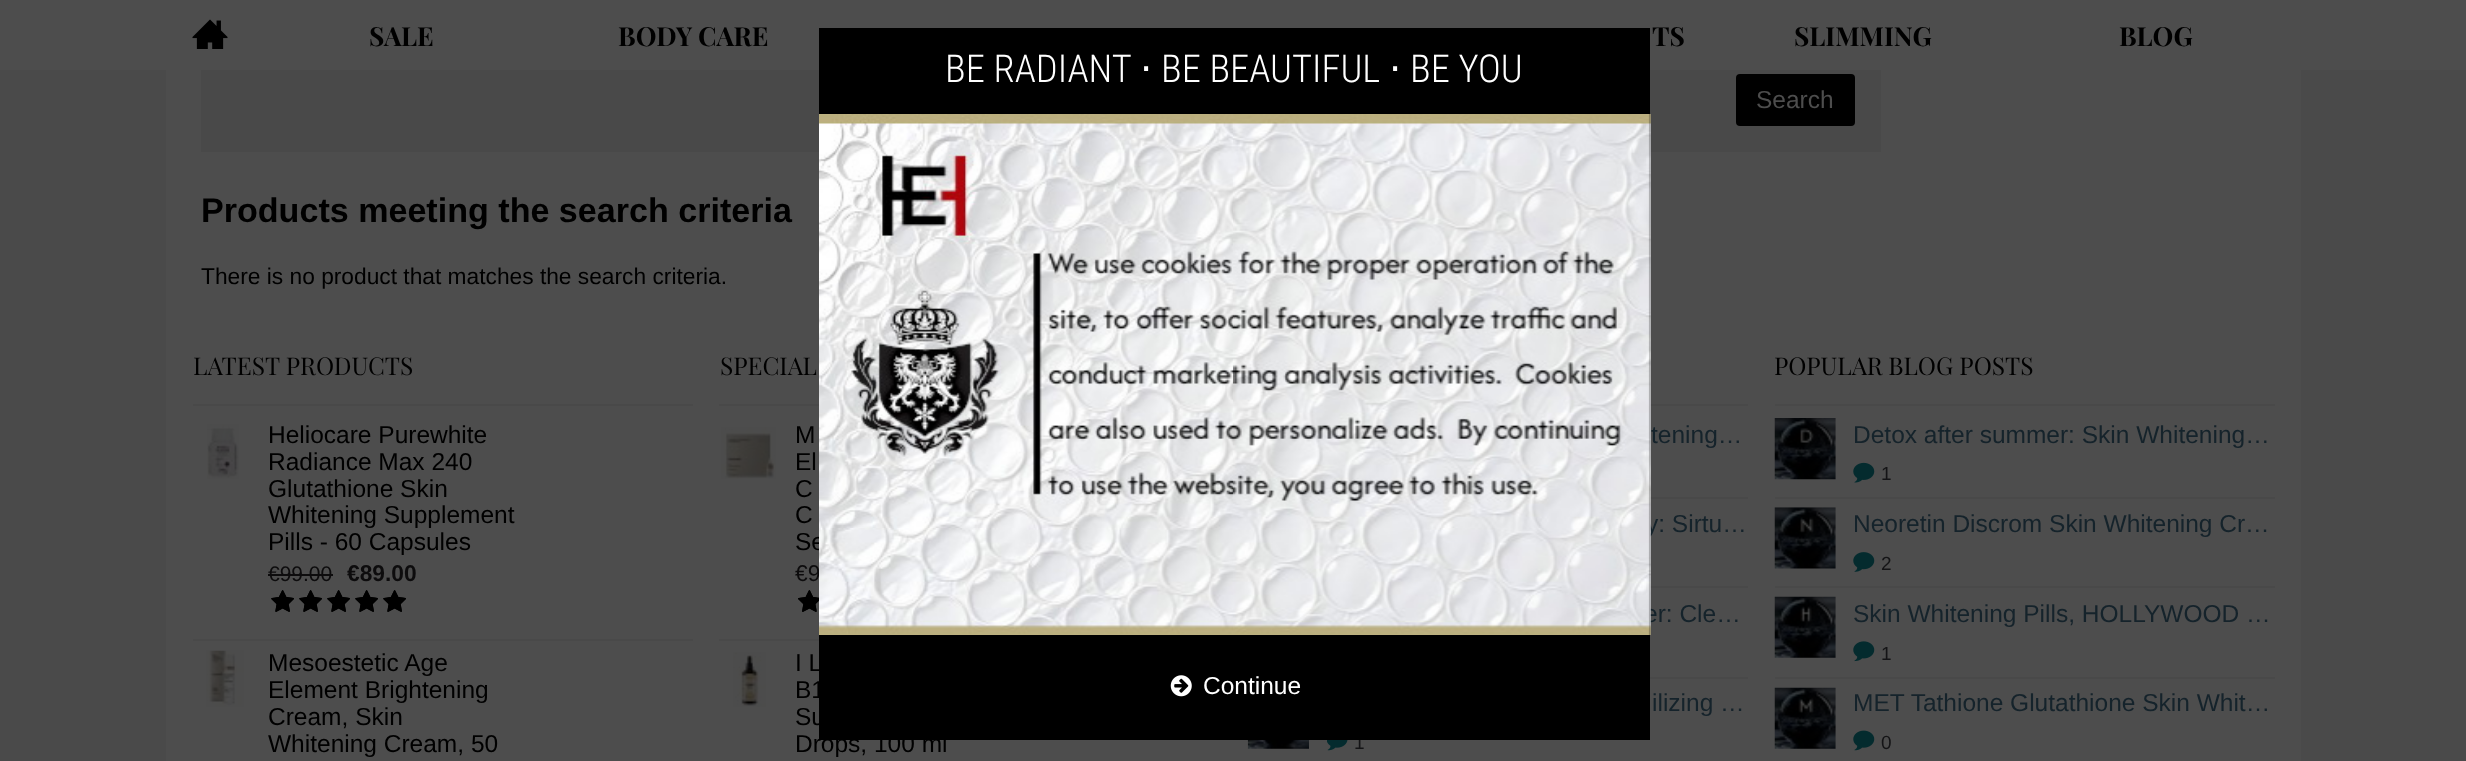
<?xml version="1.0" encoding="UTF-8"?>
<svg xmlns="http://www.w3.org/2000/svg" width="2466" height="761">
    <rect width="100%" height="100%" fill="#4A4A4A"/>
    <rect x="0" y="0" width="2466" height="70" fill="#4D4D4D"/>
    <image x="192" y="19" width="36" height="30" href="img_01.png"/>
    <text x="369" y="46" font-family="Playfair Display" font-size="26.25" font-weight="700" fill="#000000">SALE</text>
    <text x="618" y="46" font-family="Playfair Display" font-size="26.25" font-weight="700" fill="#000000">BODY CARE</text>
    <text x="1652" y="46" font-family="Playfair Display" font-size="26.25" font-weight="700" fill="#000000">TS</text>
    <text x="1794" y="46" font-family="Playfair Display" font-size="26.25" font-weight="700" fill="#000000">SLIMMING</text>
    <text x="2119" y="46" font-family="Playfair Display" font-size="26.25" font-weight="700" fill="#000000">BLOG</text>
    <rect x="166" y="70" width="2135" height="691" fill="#4D4D4D"/>
    <rect x="201" y="70" width="1680" height="82" fill="#494949"/>
    <text x="795" y="581" font-family="Liberation Sans" font-size="22.75" fill="#0D0C0D">€9</text>
    <text x="1646" y="532" font-family="Liberation Sans" font-size="24.5" fill="#15232B">y: Sirtu…</text>
    <text x="1644" y="622" font-family="Liberation Sans" font-size="24.5" fill="#15232B">er: Cle…</text>
    <text x="1354" y="749" font-family="Liberation Sans" font-size="19" fill="#141416">1</text>
    <rect x="819" y="28" width="831" height="712" fill="#000000"/>
    <text x="945" y="82" font-family="Roboto Condensed" font-size="38.5" font-weight="300" fill="#FFFFFF">BE RADIANT</text>
    <text x="1140" y="82" font-family="DejaVu Sans" font-size="38.5" fill="#FFFFFF">⋅</text>
    <text x="1161" y="82" font-family="Roboto Condensed" font-size="38.5" font-weight="300" fill="#FFFFFF">BE BEAUTIFUL</text>
    <text x="1389" y="82" font-family="DejaVu Sans" font-size="38.5" fill="#FFFFFF">⋅</text>
    <text x="1410" y="82" font-family="Roboto Condensed" font-size="38.5" font-weight="300" fill="#FFFFFF">BE YOU</text>
    <text x="795" y="550" font-family="Liberation Sans" font-size="24.5" fill="#000000">Se</text>
    <rect x="1650" y="404" width="98" height="2" fill="#494949"/>
    <rect x="1650" y="497" width="98" height="2" fill="#494949"/>
    <rect x="1650" y="586" width="98" height="2" fill="#494949"/>
    <image x="819" y="114" width="832" height="521" href="img_02.png"/>
    <image x="1170" y="675" width="22" height="22" href="img_03.png"/>
    <text x="1203" y="694" font-family="Liberation Sans" font-size="24.5" fill="#FFFFFF">Continue</text>
    <rect x="1736" y="74" width="119" height="52" rx="4" fill="#000000"/>
    <text x="1756" y="108" font-family="Liberation Sans" font-size="24.5" fill="#4D4D4D">Search</text>
    <text x="201" y="222" font-family="Liberation Sans" font-size="34.1" font-weight="700" fill="#000000">Products meeting the search criteria</text>
    <text x="201" y="284" font-family="Liberation Sans" font-size="22.75" fill="#000000">There is no product that matches the search criteria.</text>
    <rect x="193" y="404" width="500" height="2" fill="#494949"/>
    <text x="193" y="375" font-family="Playfair Display" font-size="24.5" fill="#000000">LATEST PRODUCTS</text>
    <rect x="193" y="639" width="500" height="2" fill="#494949"/>
    <image x="207" y="424" width="32" height="55" href="img_04.png"/>
    <text font-family="Liberation Sans" font-size="24.5" fill="#000000">
        <tspan x="268" y="443">Heliocare Purewhite</tspan>
        <tspan x="268" y="470">Radiance Max 240</tspan>
        <tspan x="268" y="497">Glutathione Skin</tspan>
        <tspan x="268" y="523">Whitening Supplement</tspan>
        <tspan x="268" y="550">Pills - 60 Capsules</tspan>
    </text>
    <text x="268" y="581" font-family="Liberation Sans" font-size="21" fill="#0D0C0D">€99.00</text>
    <rect x="268" y="574" width="65" height="2" fill="#0D0C0D"/>
    <text x="347" y="581" font-family="Liberation Sans" font-size="22.75" font-weight="700" fill="#0D0C0D">€89.00</text>
    <image x="271" y="590" width="23" height="22" href="img_05.png"/>
    <image x="271" y="590" width="23" height="22" href="img_06.png"/>
    <image x="299" y="590" width="23" height="22" href="img_05.png"/>
    <image x="299" y="590" width="23" height="22" href="img_06.png"/>
    <image x="327" y="590" width="23" height="22" href="img_05.png"/>
    <image x="327" y="590" width="23" height="22" href="img_06.png"/>
    <image x="355" y="590" width="23" height="22" href="img_05.png"/>
    <image x="355" y="590" width="23" height="22" href="img_06.png"/>
    <image x="383" y="590" width="23" height="22" href="img_05.png"/>
    <image x="383" y="590" width="23" height="22" href="img_06.png"/>
    <image x="206" y="650" width="38" height="57" href="img_07.png"/>
    <text font-family="Liberation Sans" font-size="24.5" fill="#000000">
        <tspan x="268" y="671">Mesoestetic Age</tspan>
        <tspan x="268" y="698">Element Brightening</tspan>
        <tspan x="268" y="725">Cream, Skin</tspan>
        <tspan x="268" y="752">Whitening Cream, 50</tspan>
    </text>
    <rect x="719" y="404" width="100" height="2" fill="#494949"/>
    <text x="720" y="375" font-family="Playfair Display" font-size="24.5" fill="#000000">SPECIAL</text>
    <rect x="719" y="639" width="100" height="2" fill="#494949"/>
    <image x="721" y="427" width="55" height="52" href="img_08.png"/>
    <text font-family="Liberation Sans" font-size="24.5" fill="#000000">
        <tspan x="795" y="443">M</tspan>
        <tspan x="795" y="470">El</tspan>
        <tspan x="795" y="497">C</tspan>
        <tspan x="795" y="523">C</tspan>
    </text>
    <image x="798" y="590" width="21" height="22" href="img_09.png"/>
    <image x="798" y="590" width="21" height="22" href="img_10.png"/>
    <image x="733" y="652" width="33" height="55" href="img_11.png"/>
    <text font-family="Liberation Sans" font-size="24.5" fill="#000000">
        <tspan x="795" y="671">I L</tspan>
        <tspan x="795" y="698">B1</tspan>
        <tspan x="795" y="725">Su</tspan>
        <tspan x="795" y="752">Drops, 100 ml</tspan>
    </text>
    <text x="1651" y="443" font-family="Liberation Sans" font-size="24.5" fill="#15232B">tening…</text>
    <rect x="1650" y="677" width="98" height="2" fill="#494949"/>
    <image x="1247" y="740" width="62" height="9" href="img_12.png"/>
    <text x="1652" y="711" font-family="Liberation Sans" font-size="24.5" fill="#15232B">ilizing …</text>
    <image x="1327" y="740" width="21" height="11" href="img_13.png"/>
    <rect x="1775" y="404" width="500" height="2" fill="#494949"/>
    <text x="1774" y="375" font-family="Playfair Display" font-size="24.5" fill="#000000">POPULAR BLOG POSTS</text>
    <rect x="1775" y="497" width="500" height="2" fill="#494949"/>
    <image x="1774" y="418" width="62" height="62" href="img_14.png"/>
    <text x="1853" y="443" font-family="Liberation Sans" font-size="24.5" fill="#15232B">Detox after summer: Skin Whitening…</text>
    <image x="1853" y="462" width="22" height="21" href="img_15.png"/>
    <text x="1881" y="480" font-family="Liberation Sans" font-size="19" fill="#141416">1</text>
    <rect x="1775" y="586" width="500" height="2" fill="#494949"/>
    <image x="1774" y="507" width="62" height="62" href="img_16.png"/>
    <text x="1853" y="532" font-family="Liberation Sans" font-size="24.5" fill="#15232B">Neoretin Discrom Skin Whitening Cr…</text>
    <image x="1853" y="552" width="22" height="20" href="img_17.png"/>
    <text x="1881" y="570" font-family="Liberation Sans" font-size="19" fill="#141416">2</text>
    <rect x="1775" y="677" width="500" height="2" fill="#494949"/>
    <image x="1774" y="596" width="62" height="62" href="img_18.png"/>
    <text x="1853" y="622" font-family="Liberation Sans" font-size="24.5" fill="#15232B">Skin Whitening Pills, HOLLYWOOD …</text>
    <image x="1853" y="641" width="22" height="21" href="img_19.png"/>
    <text x="1881" y="660" font-family="Liberation Sans" font-size="19" fill="#141416">1</text>
    <image x="1774" y="687" width="62" height="62" href="img_20.png"/>
    <text x="1853" y="711" font-family="Liberation Sans" font-size="24.5" fill="#15232B">MET Tathione Glutathione Skin Whit…</text>
    <image x="1853" y="730" width="22" height="21" href="img_21.png"/>
    <text x="1881" y="749" font-family="Liberation Sans" font-size="19" fill="#141416">0</text>
</svg>
